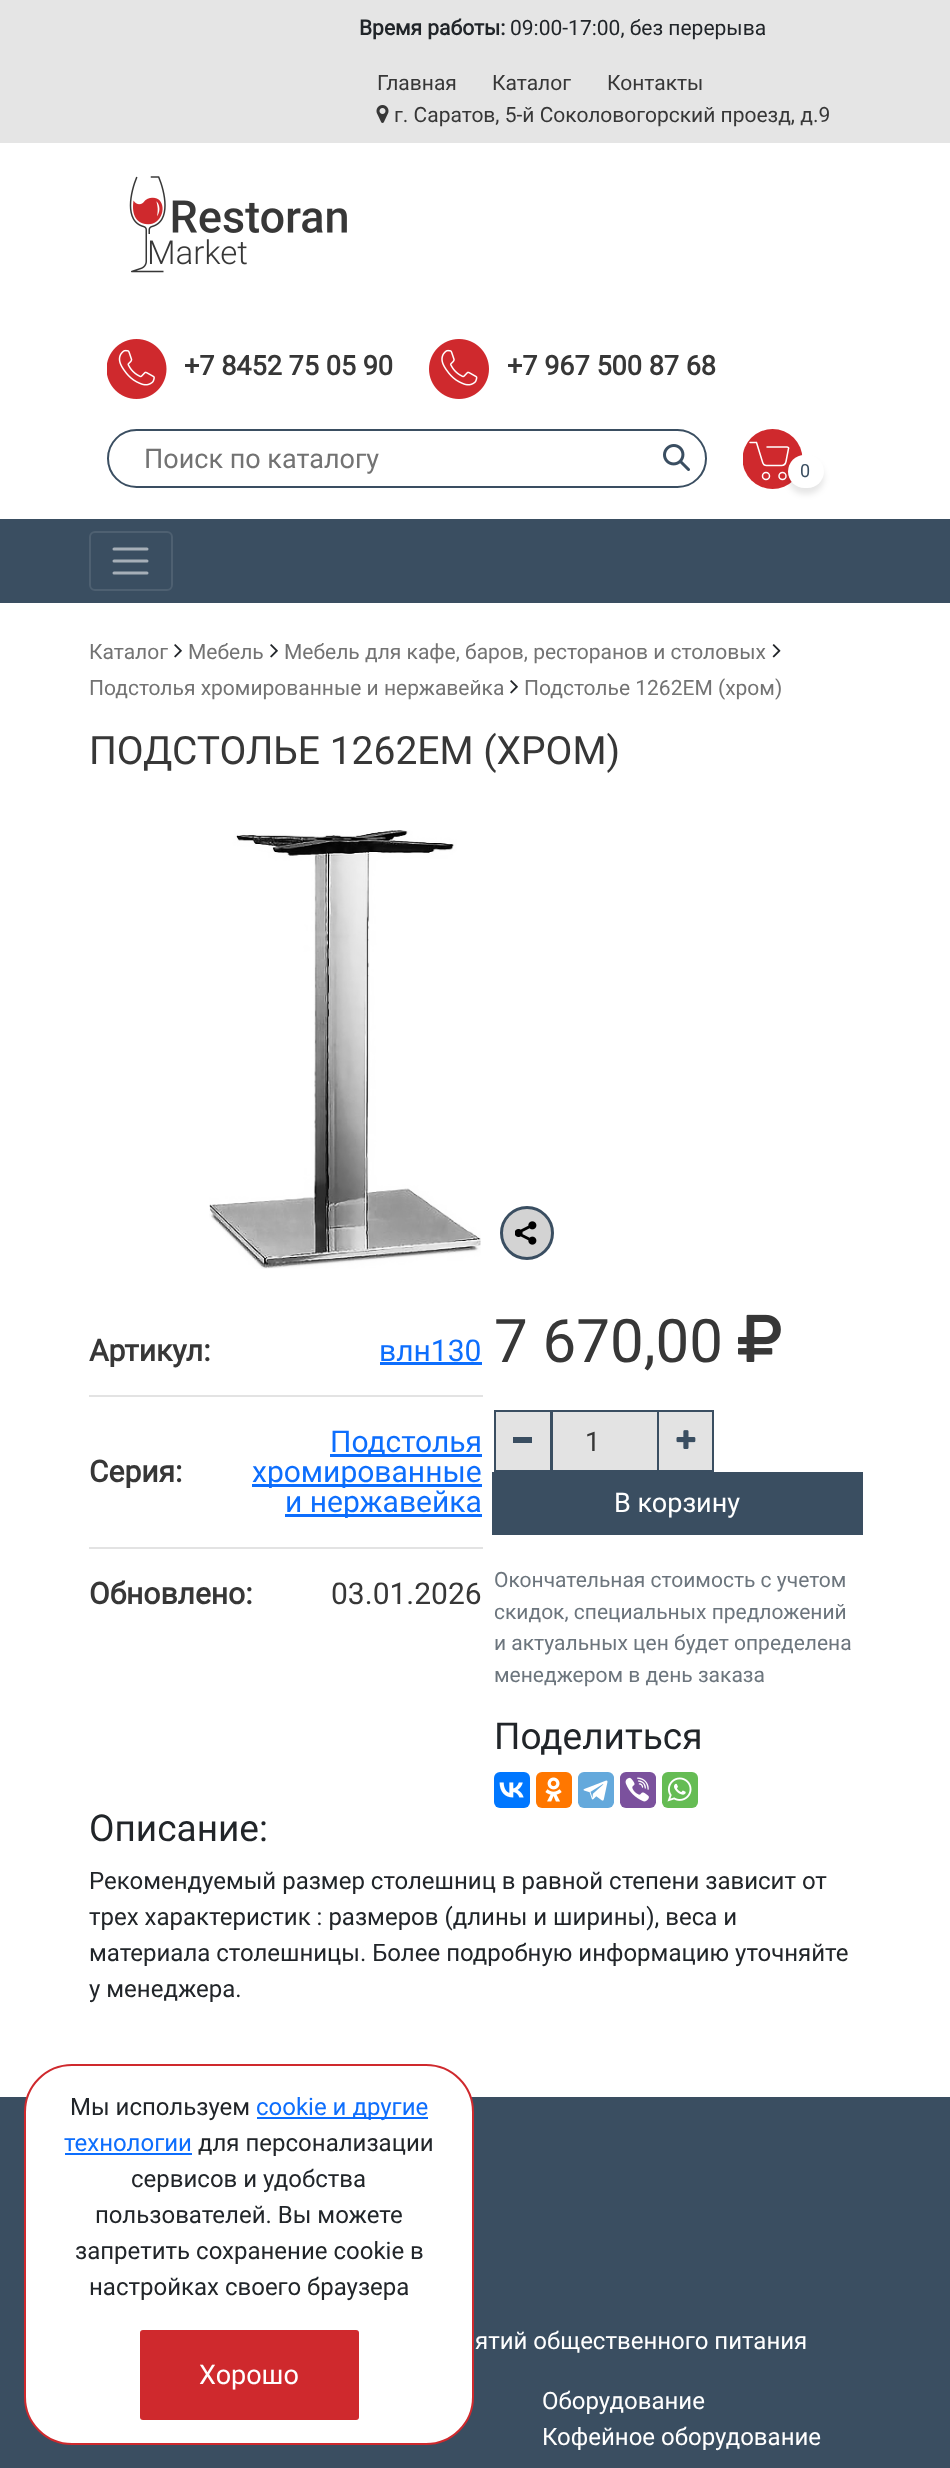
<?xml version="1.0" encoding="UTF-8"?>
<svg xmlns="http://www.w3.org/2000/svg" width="950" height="2468">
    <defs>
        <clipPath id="clip1"><rect x="743" y="429" width="60" height="60"/></clipPath>
        <filter id="blur1" x="-50%" y="-200%" width="200%" height="500%"><feGaussianBlur stdDeviation="3"/></filter>
    </defs>
    <rect width="100%" height="100%" fill="#FFFFFF"/>
    <rect x="0" y="0" width="950" height="143" fill="#E5E5E5"/>
    <text x="359" y="35" font-family="Roboto" font-size="21" font-weight="700" fill="#212529">Время работы:</text>
    <text x="510" y="35" font-family="Roboto" font-size="21" fill="#212529">09:00-17:00, без перерыва</text>
    <text x="377" y="90" font-family="Roboto" font-size="21" fill="#373737">Главная</text>
    <text x="492" y="90" font-family="Roboto" font-size="21" fill="#373737">Каталог</text>
    <text x="607" y="90" font-family="Roboto" font-size="21" fill="#373737">Контакты</text>
    <image x="376" y="105" width="13" height="18" href="img_01.png"/>
    <text x="394" y="122" font-family="Roboto" font-size="21" fill="#373737">г. Саратов, 5-й Соколовогорский проезд, д.9</text>
    <image x="129" y="176" width="218" height="97" href="img_02.png"/>
    <image x="107" y="339" width="60" height="60" href="img_03.png"/>
    <text x="184" y="375" font-family="Roboto" font-size="27" font-weight="700" fill="#373737">+7 8452 75 05 90</text>
    <image x="429" y="339" width="60" height="60" href="img_04.png"/>
    <text x="507" y="375" font-family="Roboto" font-size="27" font-weight="700" fill="#373737">+7 967 500 87 68</text>
    <rect x="108" y="430" width="598" height="57" rx="28.5" fill="none" stroke="#3A4E61" stroke-width="2"/>
    <text x="144" y="468" font-family="Roboto" font-size="27" fill="#737373">Поиск по каталогу</text>
    <image x="663" y="444" width="27" height="27" href="img_05.png"/>
    <g clip-path="url(#clip1)">
        <circle cx="772.5" cy="459" r="30" fill="#CF292D"/>
    </g>
    <path d="M 750 442.5 H 756.5 L 762.5 462 C 763 464 764.5 465.5 766.5 465.5 H 781.5 C 784 465.5 785.5 464 786 461.5 L 788.5 448.5 C 789 448 788 447 787 447 H 767" fill="none" stroke="#FFFFFF" stroke-width="1.5" stroke-linecap="round"/>
    <circle cx="766" cy="476" r="3.5" fill="none" stroke="#FFFFFF" stroke-width="1.5"/>
    <circle cx="782.5" cy="476" r="3.5" fill="none" stroke="#FFFFFF" stroke-width="1.5"/>
    <rect x="788" y="461" width="36" height="33" rx="16.5" fill="#000000" fill-opacity="0.1" filter="url(#blur1)"/>
    <rect x="788" y="455" width="36" height="33" rx="16.5" fill="#FFFFFF"/>
    <text x="800" y="477" font-family="Roboto" font-size="18" fill="#3A4E61">0</text>
    <rect x="0" y="519" width="950" height="84" fill="#3A4E61"/>
    <rect x="90" y="532" width="82" height="58" rx="5" fill="none" stroke="#4E6071" stroke-width="2"/>
    <path d="M 114 549 H 147 M 114 561 H 147 M 114 573 H 147" fill="none" stroke="#A6AFB8" stroke-width="3" stroke-linecap="round"/>
    <text x="89" y="659" font-family="Roboto" font-size="21" fill="#737373">Каталог</text>
    <image x="174" y="644" width="8" height="14" href="img_06.png"/>
    <text x="188" y="659" font-family="Roboto" font-size="21" fill="#737373">Мебель</text>
    <image x="270" y="644" width="8" height="14" href="img_06.png"/>
    <text x="284" y="659" font-family="Roboto" font-size="21" fill="#737373">Мебель для кафе, баров, ресторанов и столовых</text>
    <image x="772" y="644" width="9" height="14" href="img_07.png"/>
    <text x="89" y="695" font-family="Roboto" font-size="21" fill="#737373">Подстолья хромированные и нержавейка</text>
    <image x="510" y="680" width="8" height="14" href="img_06.png"/>
    <text x="524" y="695" font-family="Roboto" font-size="21" fill="#737373">Подстолье 1262EM (хром)</text>
    <text x="89" y="764" font-family="Roboto" font-size="39" fill="#373737">ПОДСТОЛЬЕ 1262EM (ХРОМ)</text>
    <image x="209" y="830" width="272" height="439" href="img_08.png"/>
    <circle cx="527" cy="1233" r="25.5" fill="#E3E3E3" stroke="#3A4E61" stroke-width="3"/>
    <circle cx="527" cy="1233" r="24" fill="#000000" fill-opacity="0.07"/>
    <image x="515" y="1221" width="22" height="24" href="img_09.png"/>
    <rect x="89" y="1395" width="394" height="2" fill="#E3E3E3"/>
    <text x="89" y="1361" font-family="Roboto" font-size="30" font-weight="700" fill="#373737">Артикул:</text>
    <text x="379" y="1361" font-family="Roboto" font-size="30" fill="#0D6EFD">влн130</text>
    <rect x="380" y="1362" width="102" height="3" fill="#0D6EFD"/>
    <rect x="89" y="1547" width="394" height="2" fill="#E3E3E3"/>
    <text x="89" y="1482" font-family="Roboto" font-size="30" font-weight="700" fill="#373737">Серия:</text>
    <rect x="330" y="1454" width="152" height="3" fill="#0D6EFD"/>
    <text x="330" y="1452" font-family="Roboto" font-size="30" fill="#0D6EFD">Подстолья</text>
    <rect x="252" y="1484" width="230" height="3" fill="#0D6EFD"/>
    <text x="252" y="1482" font-family="Roboto" font-size="30" fill="#0D6EFD">хромированные</text>
    <rect x="285" y="1514" width="197" height="3" fill="#0D6EFD"/>
    <text x="285" y="1512" font-family="Roboto" font-size="30" fill="#0D6EFD">и нержавейка</text>
    <text x="89" y="1604" font-family="Roboto" font-size="30" font-weight="700" fill="#373737">Обновлено:</text>
    <text x="331" y="1604" font-family="Roboto" font-size="30" fill="#373737">03.01.2026</text>
    <text x="494" y="1362" font-family="Roboto" font-size="60" fill="#373737">7 670,00</text>
    <image x="738" y="1314" width="43" height="48" href="img_10.png"/>
    <rect x="552" y="1411" width="106" height="60" fill="#E3E3E3" stroke="#3A4E61" stroke-width="2"/>
    <rect x="495" y="1411" width="56" height="60" fill="#E3E3E3" stroke="#3A4E61" stroke-width="2"/>
    <rect x="513" y="1437" width="19" height="6" fill="#3A4E61"/>
    <text x="585" y="1451" font-family="Roboto" font-size="27" fill="#373737">1</text>
    <rect x="658" y="1411" width="55" height="60" fill="#E3E3E3" stroke="#3A4E61" stroke-width="2"/>
    <image x="676" y="1430" width="20" height="19" href="img_11.png"/>
    <rect x="492" y="1472" width="371" height="63" fill="#3A4E61"/>
    <text x="614" y="1512" font-family="Roboto" font-size="27" fill="#FFFFFF">В корзину</text>
    <text font-family="Roboto" font-size="21" fill="#6C757D">
        <tspan x="494" y="1587">Окончательная стоимость с учетом</tspan>
        <tspan x="494" y="1619">скидок, специальных предложений</tspan>
        <tspan x="494" y="1650">и актуальных цен будет определена</tspan>
        <tspan x="494" y="1682">менеджером в день заказа</tspan>
    </text>
    <text x="494" y="1749" font-family="Roboto" font-size="37" fill="#212529">Поделиться</text>
    <rect x="494" y="1772" width="36" height="36" rx="6" fill="#0077FF"/>
    <image x="499" y="1782" width="25" height="16" href="img_12.png"/>
    <rect x="536" y="1772" width="36" height="36" rx="6" fill="#FF7700"/>
    <image x="545" y="1777" width="17" height="25" href="img_13.png"/>
    <rect x="578" y="1772" width="36" height="36" rx="6" fill="#64A9DC"/>
    <image x="583" y="1780" width="25" height="21" href="img_14.png"/>
    <rect x="620" y="1772" width="36" height="36" rx="6" fill="#7B519D"/>
    <image x="625" y="1777" width="24" height="25" href="img_15.png"/>
    <rect x="662" y="1772" width="36" height="36" rx="6" fill="#65BC54"/>
    <image x="667" y="1777" width="25" height="25" href="img_16.png"/>
    <text x="89" y="1841" font-family="Roboto" font-size="37" fill="#212529">Описание:</text>
    <text font-family="Roboto" font-size="24" fill="#212529">
        <tspan x="89" y="1889">Рекомендуемый размер столешниц в равной степени зависит от</tspan>
        <tspan x="89" y="1925">трех характеристик : размеров (длины и ширины), веса и</tspan>
        <tspan x="89" y="1961">материала столешницы. Более подробную информацию уточняйте</tspan>
        <tspan x="89" y="1997">у менеджера.</tspan>
    </text>
    <rect x="0" y="2097" width="950" height="371" fill="#3A4E61"/>
    <rect x="25" y="2065" width="448" height="379" rx="47" fill="#FFFFFF" stroke="#CF292D" stroke-width="2"/>
    <text x="70" y="2115" font-family="Roboto" font-size="24" fill="#212529">Мы используем</text>
    <rect x="257" y="2117" width="171" height="2" fill="#0D6EFD"/>
    <text x="256" y="2115" font-family="Roboto" font-size="24" fill="#0D6EFD">cookie и другие</text>
    <text x="64" y="2151" font-family="Roboto" font-size="24" fill="#0D6EFD">технологии</text>
    <rect x="65" y="2153" width="127" height="2" fill="#0D6EFD"/>
    <text x="198" y="2151" font-family="Roboto" font-size="24" fill="#212529">для персонализации</text>
    <text x="131" y="2187" font-family="Roboto" font-size="24" fill="#212529">сервисов и удобства</text>
    <text x="95" y="2223" font-family="Roboto" font-size="24" fill="#212529">пользователей. Вы можете</text>
    <text x="75" y="2259" font-family="Roboto" font-size="24" fill="#212529">запретить сохранение cookie в</text>
    <text x="89" y="2295" font-family="Roboto" font-size="24" fill="#212529">настройках своего браузера</text>
    <rect x="140" y="2330" width="219" height="90" rx="3" fill="#CF292D"/>
    <text x="199" y="2384" font-family="Roboto" font-size="27" fill="#FFFFFF">Хорошо</text>
    <text x="475" y="2349" font-family="Roboto" font-size="24" fill="#FFFFFF">ятий общественного питания</text>
    <text font-family="Roboto" font-size="24" fill="#FFFFFF">
        <tspan x="542" y="2409">Оборудование</tspan>
        <tspan x="542" y="2445">Кофейное оборудование</tspan>
    </text>
</svg>
